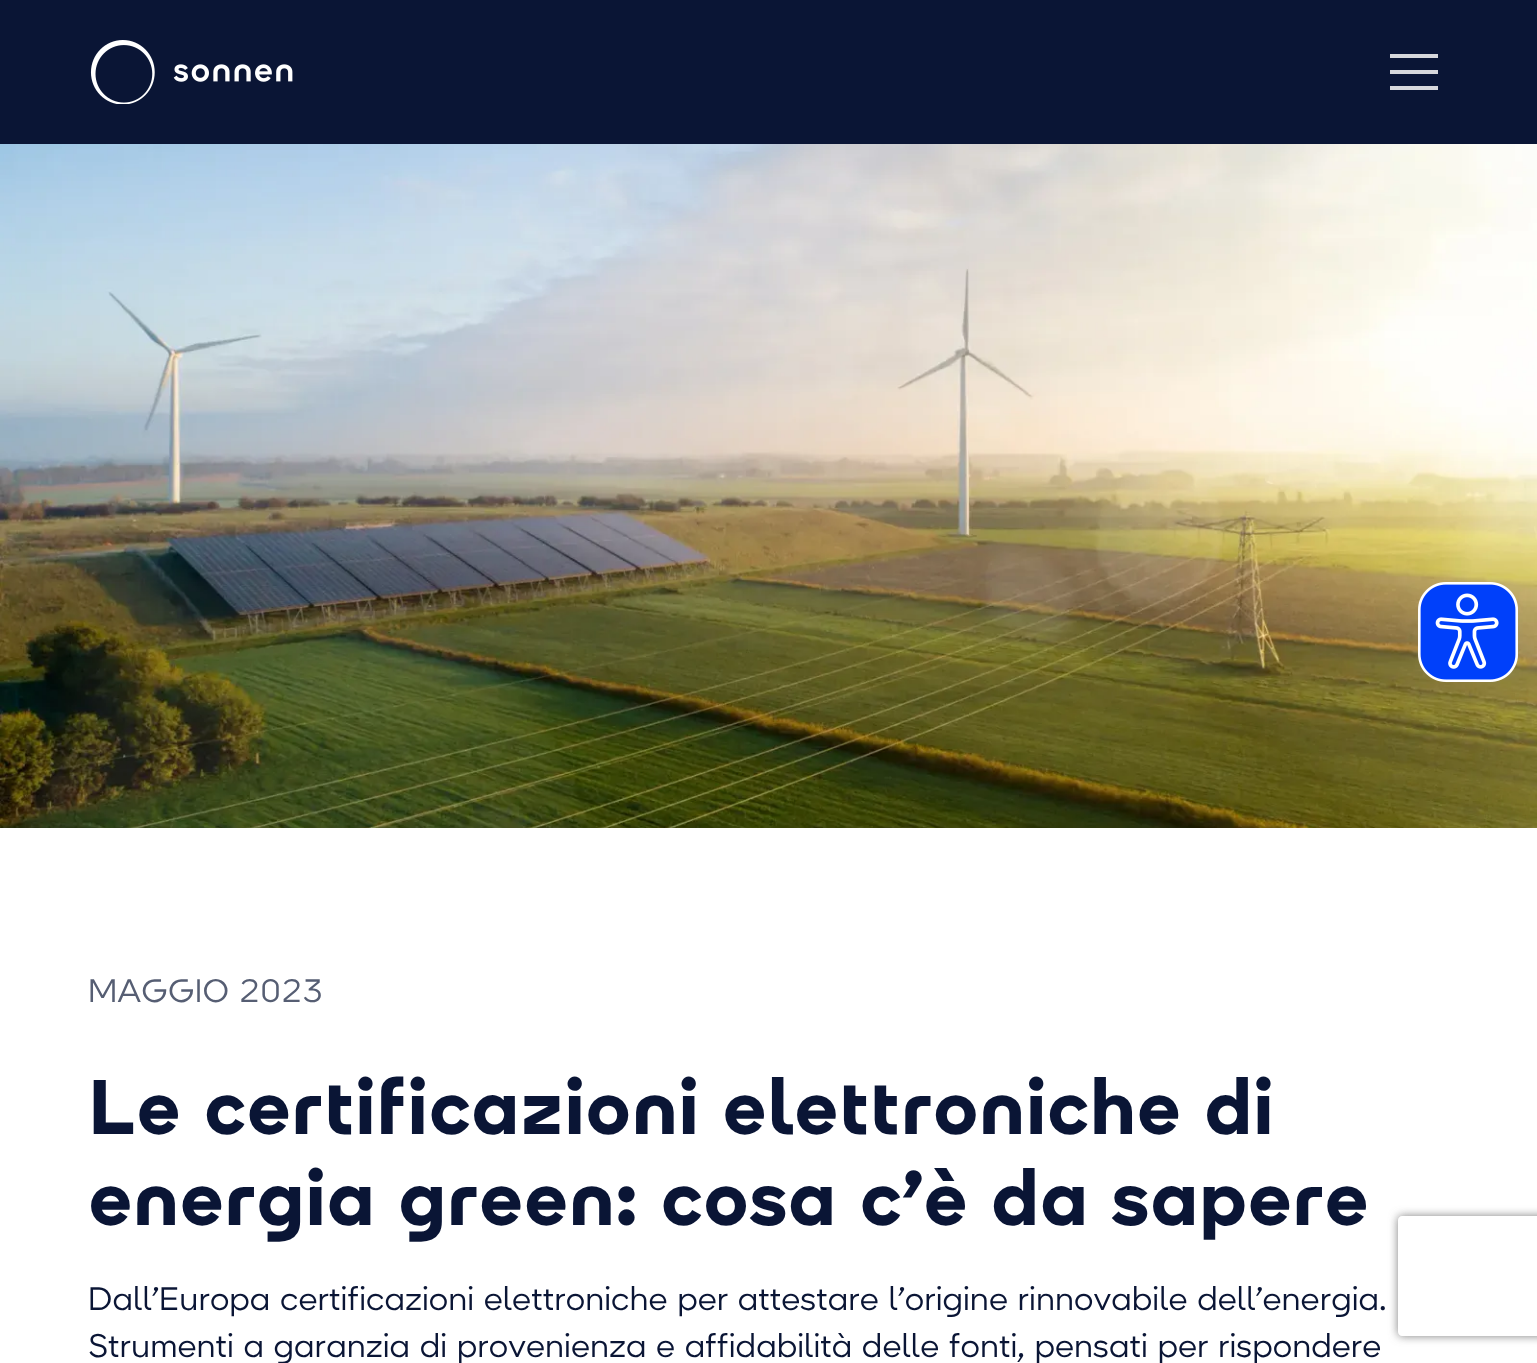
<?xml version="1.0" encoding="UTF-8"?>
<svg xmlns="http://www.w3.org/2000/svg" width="1537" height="1363">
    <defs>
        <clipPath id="clip1"><path d="M 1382 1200 H 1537 V 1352 H 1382 Z M 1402 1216 H 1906 C 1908 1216 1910 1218 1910 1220 V 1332 C 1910 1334 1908 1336 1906 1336 H 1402 C 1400 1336 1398 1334 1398 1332 V 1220 C 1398 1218 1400 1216 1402 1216 Z" clip-rule="evenodd"/></clipPath>
        <filter id="blur1" x="-50%" y="-200%" width="200%" height="500%"><feGaussianBlur stdDeviation="5"/></filter>
    </defs>
    <rect width="100%" height="100%" fill="#FFFFFF"/>
    <image x="0" y="144" width="1537" height="684" href="img_03.png"/>
    <image x="1418" y="582" width="100" height="100" href="img_01.png"/>
    <rect x="0" y="0" width="1537" height="144" fill="#0A1535"/>
    <image x="90" y="40" width="203" height="64" href="img_02.png"/>
    <rect x="1390" y="54" width="48" height="4" fill="#D6D7DB"/>
    <rect x="1390" y="70" width="48" height="4" fill="#D6D7DB"/>
    <rect x="1390" y="86" width="48" height="4" fill="#D6D7DB"/>
    <text x="88" y="1002" font-family="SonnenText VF" font-size="32" font-weight="300" fill="#565E73">MAGGIO 2023</text>
    <text font-family="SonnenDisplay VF" font-size="76" font-weight="700" fill="#0A1535">
        <tspan x="88" y="1134">Le certificazioni elettroniche di</tspan>
        <tspan x="88" y="1225">energia green: cosa c’è da sapere</tspan>
    </text>
    <text font-family="SonnenText VF" font-size="32" font-weight="300" fill="#0A1535">
        <tspan x="88" y="1310">Dall’Europa certificazioni elettroniche per attestare l’origine rinnovabile dell’energia.</tspan>
        <tspan x="88" y="1357">Strumenti a garanzia di provenienza e affidabilità delle fonti, pensati per rispondere</tspan>
    </text>
    <g clip-path="url(#clip1)">
        <rect x="1398" y="1216" width="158" height="120" rx="4" fill="#808080" filter="url(#blur1)"/>
    </g>
</svg>
